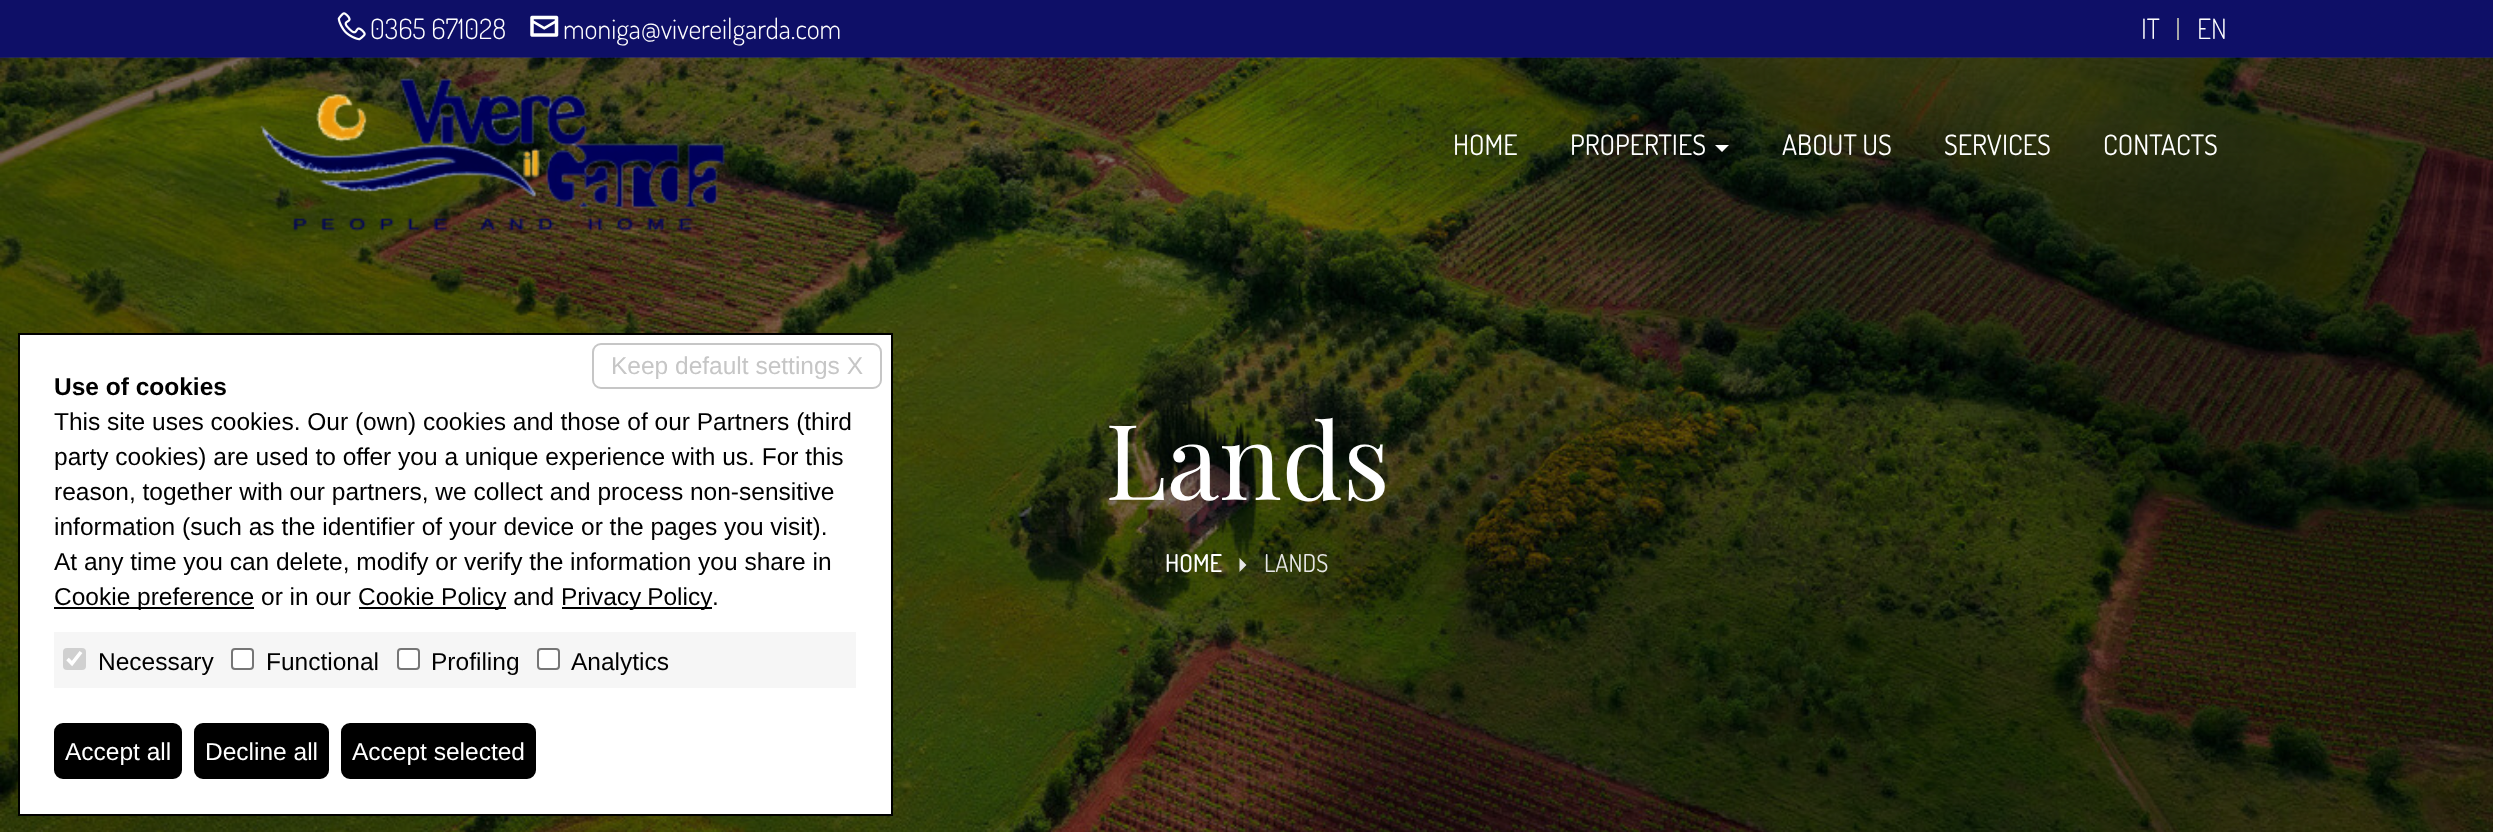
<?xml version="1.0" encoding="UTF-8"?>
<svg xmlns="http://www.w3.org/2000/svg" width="2493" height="832">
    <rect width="100%" height="100%" fill="#0E0F67"/>
    <image x="337" y="12" width="29" height="29" href="img_01.png"/>
    <text x="370" y="39" font-family="Dosis" font-size="28" font-weight="300" fill="#FFFFFF">0365 671028</text>
    <image x="530" y="15" width="29" height="22" href="img_02.png"/>
    <text x="563" y="39" font-family="Dosis" font-size="28" font-weight="300" fill="#FFFFFF">moniga@vivereilgarda.com</text>
    <rect x="2177" y="18" width="2" height="22" fill="#A6A6A6"/>
    <text x="2141" y="39" font-family="Dosis" font-size="28" font-weight="300" fill="#FFFFFF">IT</text>
    <text x="2197" y="39" font-family="Dosis" font-size="28" font-weight="300" fill="#FFFFFF">EN</text>
    <image x="0" y="57" width="2493" height="775" href="img_03.png"/>
    <rect x="19" y="334" width="873" height="481" fill="#FFFFFF" stroke="#000000" stroke-width="2"/>
    <rect x="593" y="344" width="288" height="44" rx="8" fill="none" stroke="#C6C6C6" stroke-width="2"/>
    <text x="611" y="374" font-family="Liberation Sans" font-size="24.5" fill="#C6C6C6">Keep default settings X</text>
    <text x="54" y="395" font-family="Liberation Sans" font-size="24.5" font-weight="700" fill="#000000">Use of cookies</text>
    <text font-family="Liberation Sans" font-size="24.5" fill="#000000">
        <tspan x="54" y="430">This site uses cookies. Our (own) cookies and those of our Partners (third</tspan>
        <tspan x="54" y="465">party cookies) are used to offer you a unique experience with us. For this</tspan>
        <tspan x="54" y="500">reason, together with our partners, we collect and process non-sensitive</tspan>
        <tspan x="54" y="535">information (such as the identifier of your device or the pages you visit).</tspan>
        <tspan x="54" y="570">At any time you can delete, modify or verify the information you share in</tspan>
    </text>
    <rect x="54" y="607" width="200" height="2" fill="#000000"/>
    <text x="54" y="605" font-family="Liberation Sans" font-size="24.5" fill="#000000">Cookie preference or in our</text>
    <rect x="359" y="607" width="147" height="2" fill="#000000"/>
    <text x="358" y="605" font-family="Liberation Sans" font-size="24.5" fill="#000000">Cookie Policy and</text>
    <rect x="562" y="607" width="150" height="2" fill="#000000"/>
    <text x="561" y="605" word-spacing="-1" font-family="Liberation Sans" font-size="24.5" fill="#000000">Privacy Policy</text>
    <text x="712" y="605" font-family="Liberation Sans" font-size="24.5" fill="#000000">.</text>
    <rect x="54" y="632" width="802" height="56" fill="#F6F6F6"/>
    <rect x="63" y="648" width="23" height="22" rx="4" fill="#D0D0D0"/>
    <path d="M 67.5 659 L 72 663.5 L 81 652" fill="none" stroke="#FFFFFF" stroke-width="3.6"/>
    <text x="98" y="670" font-family="Liberation Sans" font-size="24.5" fill="#000000">Necessary</text>
    <rect x="232" y="649" width="21" height="20" rx="3" fill="#FFFFFF" stroke="#767676" stroke-width="2"/>
    <text x="266" y="670" font-family="Liberation Sans" font-size="24.5" fill="#000000">Functional</text>
    <rect x="398" y="649" width="21" height="20" rx="3" fill="#FFFFFF" stroke="#767676" stroke-width="2"/>
    <text x="431" y="670" font-family="Liberation Sans" font-size="24.5" fill="#000000">Profiling</text>
    <rect x="538" y="649" width="21" height="20" rx="3" fill="#FFFFFF" stroke="#767676" stroke-width="2"/>
    <text x="571" y="670" font-family="Liberation Sans" font-size="24.5" fill="#000000">Analytics</text>
    <rect x="55" y="724" width="126" height="54" rx="8" fill="#000000" stroke="#000000" stroke-width="2"/>
    <text x="65" y="760" font-family="Liberation Sans" font-size="24.5" fill="#FFFFFF">Accept all</text>
    <rect x="195" y="724" width="133" height="54" rx="8" fill="#000000" stroke="#000000" stroke-width="2"/>
    <text x="205" y="760" font-family="Liberation Sans" font-size="24.5" fill="#FFFFFF">Decline all</text>
    <rect x="342" y="724" width="193" height="54" rx="8" fill="#000000" stroke="#000000" stroke-width="2"/>
    <text x="352" y="760" font-family="Liberation Sans" font-size="24.5" fill="#FFFFFF">Accept selected</text>
    <image x="260" y="78" width="465" height="154" href="img_04.png"/>
    <text x="1453" y="155" font-family="Dosis" font-size="28" fill="#FFFFFF">HOME</text>
    <text x="1570" y="155" font-family="Dosis" font-size="28" fill="#FFFFFF">PROPERTIES</text>
    <path d="M 1715 145 H 1729 L 1722 152 Z" fill="#FFFFFF"/>
    <text x="1782" y="155" font-family="Dosis" font-size="28" fill="#FFFFFF">ABOUT US</text>
    <text x="1944" y="155" font-family="Dosis" font-size="28" fill="#FFFFFF">SERVICES</text>
    <text x="2103" y="155" font-family="Dosis" font-size="28" fill="#FFFFFF">CONTACTS</text>
    <text x="1105" y="500" font-family="Playfair Display" font-size="105" fill="#FFFFFF">Lands</text>
    <text x="1165" y="572" font-family="Dosis" font-size="24.5" font-weight="500" fill="#FFFFFF">HOME</text>
    <path d="M 1239.5 572 L 1246.5 565 L 1239.5 558 Z" fill="#E6E6E6"/>
    <text x="1264" y="572" font-family="Dosis" font-size="24.5" fill="#E6E6E6">LANDS</text>
</svg>
